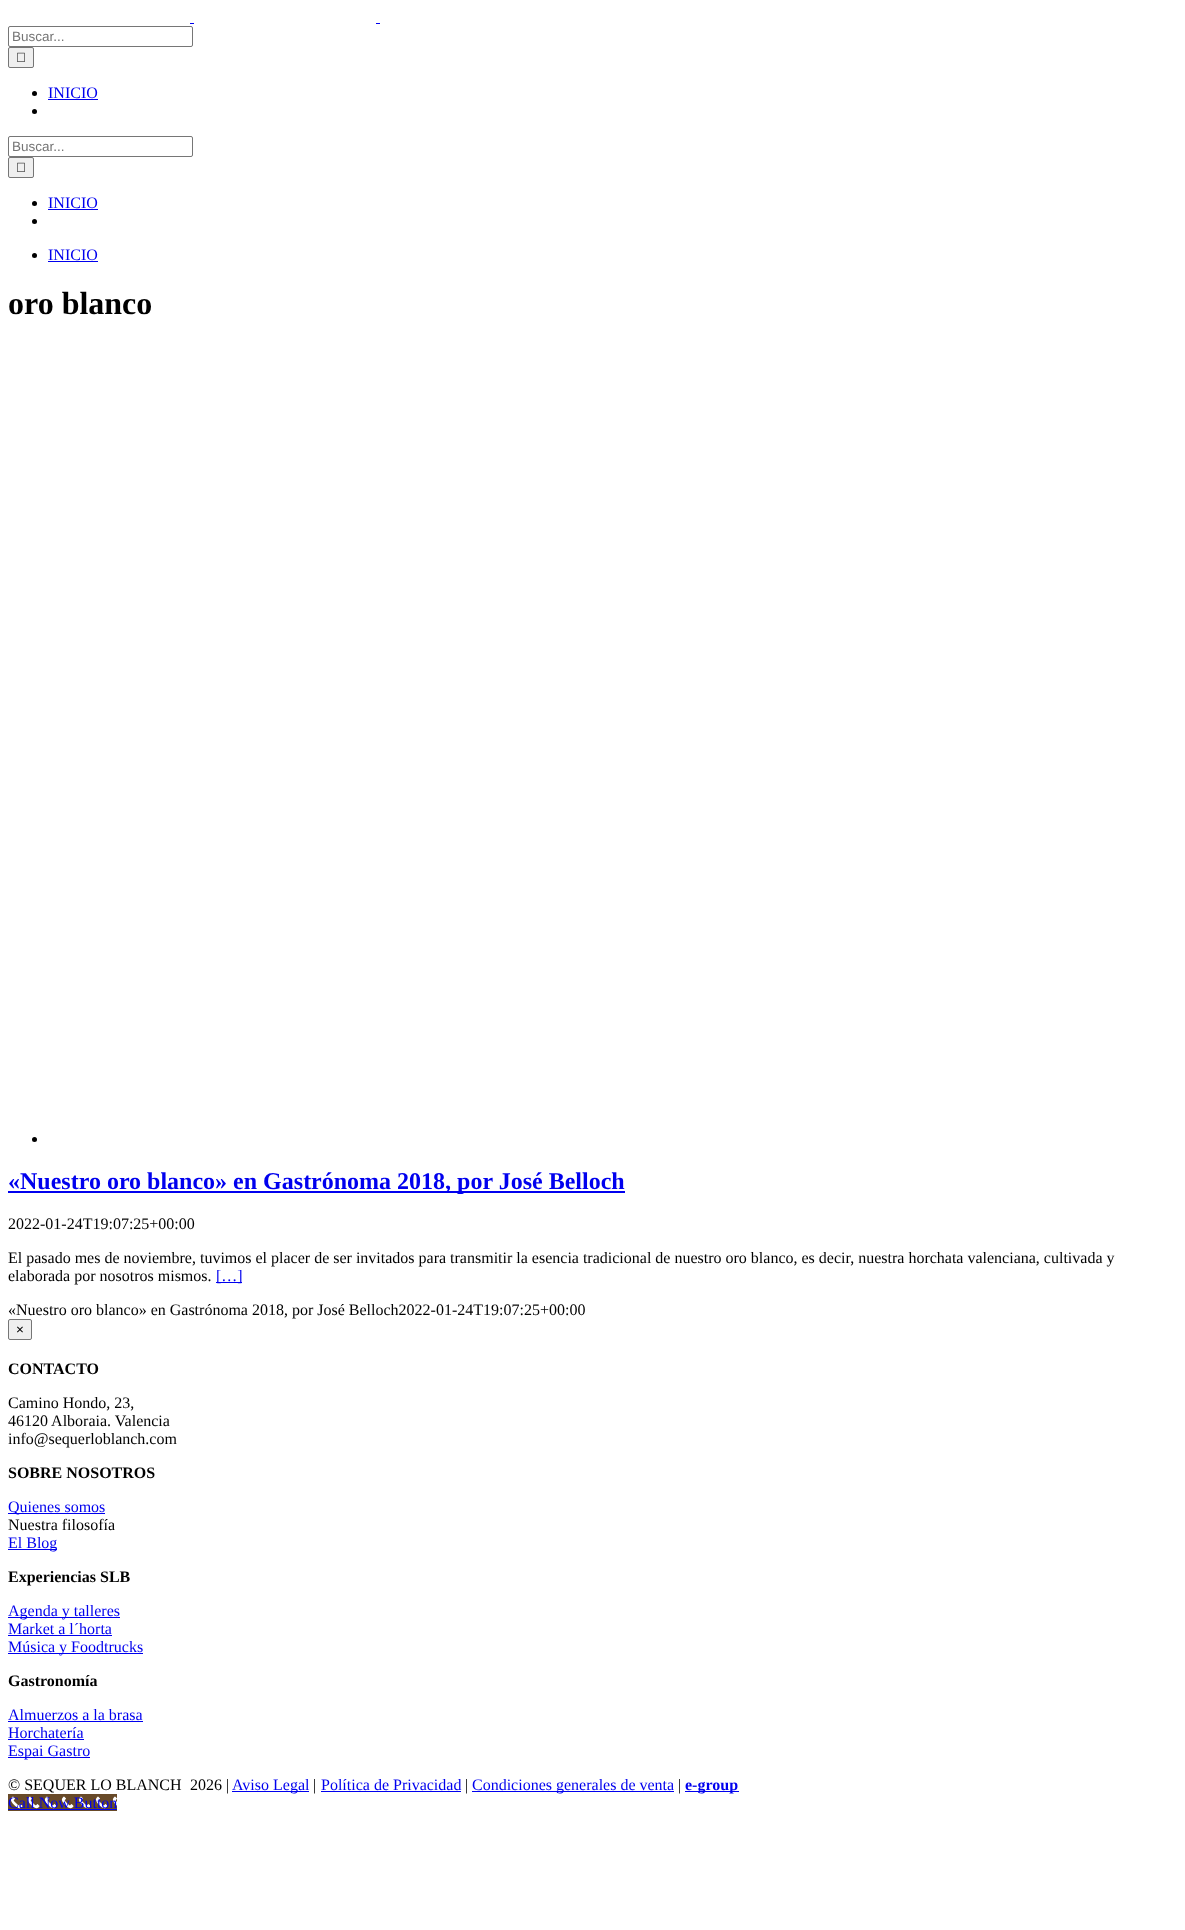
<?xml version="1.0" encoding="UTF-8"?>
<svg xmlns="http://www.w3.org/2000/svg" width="1185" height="1930">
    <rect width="100%" height="100%" fill="#FFFFFF"/>
    <rect x="190" y="23" width="4" height="1" fill="#0000EE"/>
    <rect x="376" y="23" width="4" height="1" fill="#0000EE"/>
    <rect x="8.5" y="26.5" width="184" height="20" rx="1.5" fill="none" stroke="#767676"/>
    <text x="12" y="41" font-family="Liberation Sans" font-size="13.5" fill="#757575">Buscar...</text>
    <rect x="8.5" y="47.5" width="25" height="20" rx="1.5" fill="#EFEFEF" stroke="#767676"/>
    <image x="17" y="52" width="8" height="10" href="img_01.png"/>
    <circle cx="34.5" cy="93.5" r="2.5" fill="#000000"/>
    <text x="48" y="98" font-family="Liberation Serif" font-size="16" fill="#0000EE">INICIO</text>
    <rect x="48" y="99" width="50" height="1" fill="#0000EE"/>
    <circle cx="34.5" cy="111.5" r="2.5" fill="#000000"/>
    <rect x="8.5" y="136.5" width="184" height="20" rx="1.5" fill="none" stroke="#767676"/>
    <text x="12" y="151" font-family="Liberation Sans" font-size="13.5" fill="#757575">Buscar...</text>
    <rect x="8.5" y="157.5" width="25" height="20" rx="1.5" fill="#EFEFEF" stroke="#767676"/>
    <image x="17" y="162" width="8" height="10" href="img_01.png"/>
    <circle cx="34.5" cy="203.5" r="2.5" fill="#000000"/>
    <text x="48" y="208" font-family="Liberation Serif" font-size="16" fill="#0000EE">INICIO</text>
    <rect x="48" y="209" width="50" height="1" fill="#0000EE"/>
    <circle cx="34.5" cy="221.5" r="2.5" fill="#000000"/>
    <circle cx="34.5" cy="255.5" r="2.5" fill="#000000"/>
    <text x="48" y="260" font-family="Liberation Serif" font-size="16" fill="#0000EE">INICIO</text>
    <rect x="48" y="261" width="50" height="1" fill="#0000EE"/>
    <text x="8" y="314" font-family="Liberation Serif" font-size="32" font-weight="700" fill="#000000">oro blanco</text>
    <circle cx="34.5" cy="1139.5" r="2.5" fill="#000000"/>
    <rect x="8" y="1191" width="617" height="2" fill="#0000EE"/>
    <text x="8" y="1189" font-family="Liberation Serif" font-size="24" font-weight="700" fill="#0000EE">«Nuestro oro blanco» en Gastrónoma 2018, por José Belloch</text>
    <text x="8" y="1229" font-family="Liberation Serif" font-size="16" fill="#000000">2022-01-24T19:07:25+00:00</text>
    <text font-family="Liberation Serif" font-size="16" fill="#000000">
        <tspan x="8" y="1263">El pasado mes de noviembre, tuvimos el placer de ser invitados para transmitir la esencia tradicional de nuestro oro blanco, es decir, nuestra horchata valenciana, cultivada y</tspan>
        <tspan x="8" y="1281">elaborada por nosotros mismos.</tspan>
    </text>
    <rect x="216" y="1282" width="26" height="1" fill="#0000EE"/>
    <text x="216" y="1281" font-family="Liberation Serif" font-size="16" fill="#0000EE">[…]</text>
    <text x="8" y="1315" font-family="Liberation Serif" font-size="16" fill="#000000">«Nuestro oro blanco» en Gastrónoma 2018, por José Belloch2022-01-24T19:07:25+00:00</text>
    <rect x="8.5" y="1319.5" width="23" height="20" rx="1.5" fill="#EFEFEF" stroke="#767676"/>
    <text x="16" y="1334" font-family="Liberation Sans" font-size="13.5" fill="#000000">×</text>
    <text x="8" y="1374" font-family="Liberation Serif" font-size="16" font-weight="700" fill="#000000">CONTACTO</text>
    <text font-family="Liberation Serif" font-size="16" fill="#000000">
        <tspan x="8" y="1408">Camino Hondo, 23,</tspan>
        <tspan x="8" y="1426">46120 Alboraia. Valencia</tspan>
        <tspan x="8" y="1444">info@sequerloblanch.com</tspan>
    </text>
    <text x="8" y="1478" font-family="Liberation Serif" font-size="16" font-weight="700" fill="#000000">SOBRE NOSOTROS</text>
    <rect x="8" y="1513" width="97" height="1" fill="#0000EE"/>
    <text x="8" y="1512" font-family="Liberation Serif" font-size="16" fill="#0000EE">Quienes somos</text>
    <text x="8" y="1530" font-family="Liberation Serif" font-size="16" fill="#000000">Nuestra filosofía</text>
    <rect x="8" y="1549" width="49" height="1" fill="#0000EE"/>
    <text x="8" y="1548" font-family="Liberation Serif" font-size="16" fill="#0000EE">El Blog</text>
    <text x="8" y="1582" font-family="Liberation Serif" font-size="16" font-weight="700" fill="#000000">Experiencias SLB</text>
    <rect x="8" y="1617" width="112" height="1" fill="#0000EE"/>
    <text font-family="Liberation Serif" font-size="16" fill="#0000EE">
        <tspan x="8" y="1616">Agenda y talleres</tspan>
        <tspan x="8" y="1634">Market a l´horta</tspan>
    </text>
    <rect x="8" y="1635" width="104" height="1" fill="#0000EE"/>
    <rect x="8" y="1653" width="135" height="1" fill="#0000EE"/>
    <text x="8" y="1652" font-family="Liberation Serif" font-size="16" fill="#0000EE">Música y Foodtrucks</text>
    <text x="8" y="1686" font-family="Liberation Serif" font-size="16" font-weight="700" fill="#000000">Gastronomía</text>
    <text x="8" y="1720" font-family="Liberation Serif" font-size="16" fill="#0000EE">Almuerzos a la brasa</text>
    <rect x="8" y="1721" width="135" height="1" fill="#0000EE"/>
    <text x="8" y="1738" font-family="Liberation Serif" font-size="16" fill="#0000EE">Horchatería</text>
    <rect x="8" y="1739" width="76" height="1" fill="#0000EE"/>
    <rect x="8" y="1757" width="82" height="1" fill="#0000EE"/>
    <text x="8" y="1756" font-family="Liberation Serif" font-size="16" fill="#0000EE">Espai Gastro</text>
    <text x="8" y="1790" font-family="Liberation Serif" font-size="16" fill="#000000">© SEQUER LO BLANCH</text>
    <text x="190" y="1790" font-family="Liberation Serif" font-size="16" fill="#000000">2026 |</text>
    <rect x="232" y="1791" width="77" height="1" fill="#0000EE"/>
    <text x="232" y="1790" font-family="Liberation Serif" font-size="16" fill="#0000EE">Aviso Legal</text>
    <text x="313" y="1790" font-family="Liberation Serif" font-size="16" fill="#000000">|</text>
    <text x="321" y="1790" font-family="Liberation Serif" font-size="16" fill="#0000EE">Política de Privacidad</text>
    <rect x="321" y="1791" width="140" height="1" fill="#0000EE"/>
    <text x="465" y="1790" font-family="Liberation Serif" font-size="16" fill="#000000">|</text>
    <rect x="472" y="1791" width="202" height="1" fill="#0000EE"/>
    <text x="472" y="1790" font-family="Liberation Serif" font-size="16" fill="#0000EE">Condiciones generales de venta</text>
    <text x="678" y="1790" font-family="Liberation Serif" font-size="16" fill="#000000">|</text>
    <rect x="685" y="1791" width="54" height="1" fill="#0000EE"/>
    <text x="685" y="1790" font-family="Liberation Serif" font-size="16" font-weight="700" fill="#0000EE">e-group</text>
    <rect x="8" y="1794" width="109" height="17" fill="#684A29"/>
    <image x="10" y="1796" width="107" height="13" href="img_02.png"/>
    <text x="8" y="1808" font-family="Liberation Serif" font-size="16" fill="#0000EE">Call Now Button</text>
    <rect x="8" y="1809" width="109" height="1" fill="#0000EE"/>
</svg>
